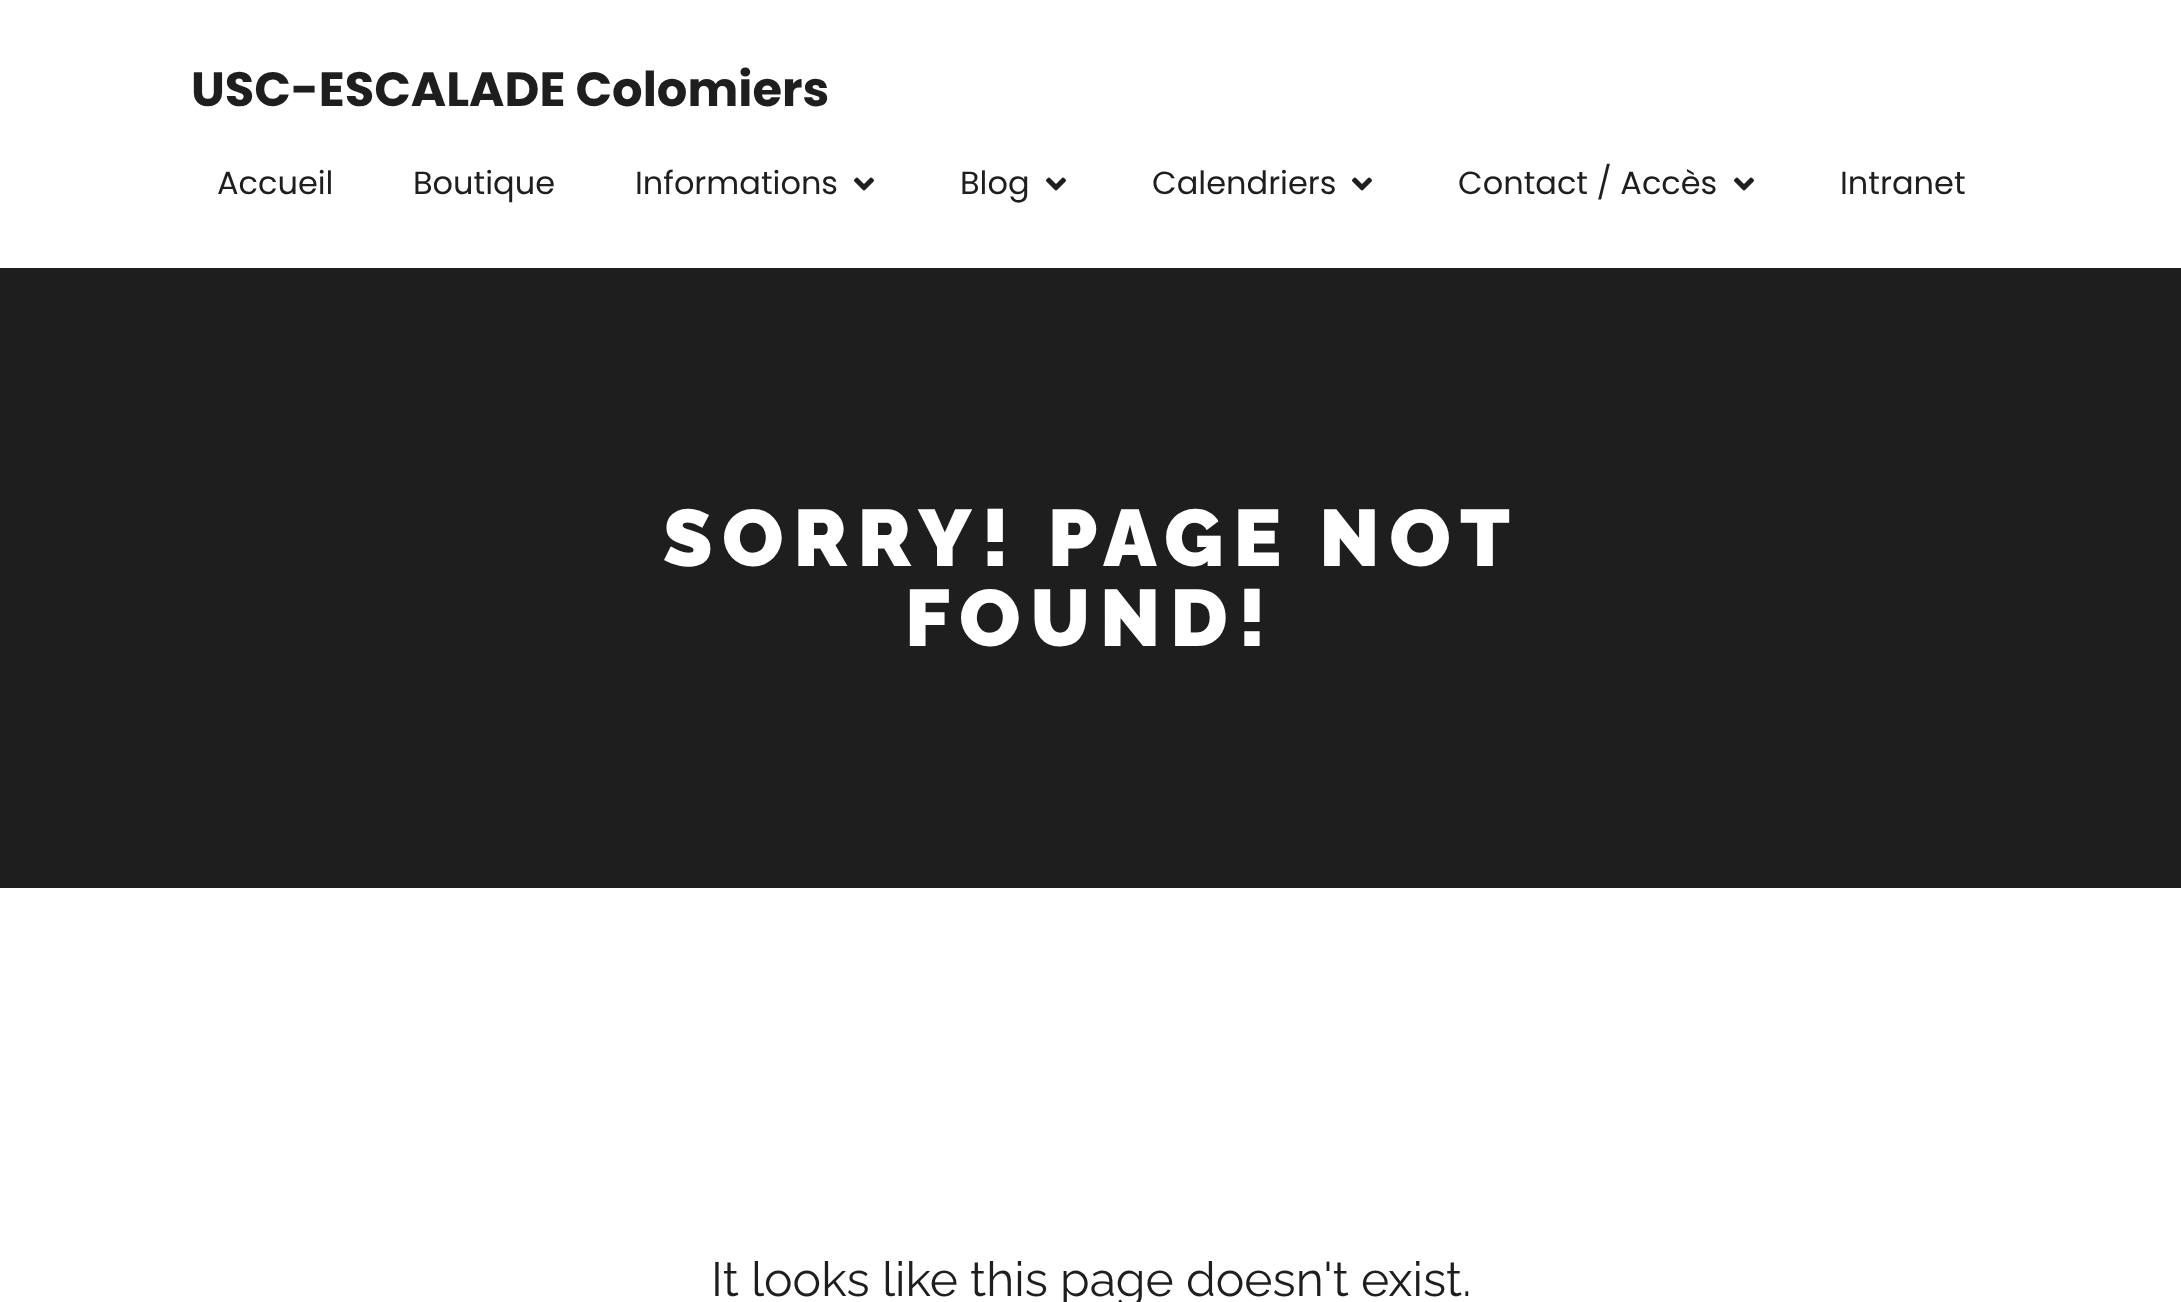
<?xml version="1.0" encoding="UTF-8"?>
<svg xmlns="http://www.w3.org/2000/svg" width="2181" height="1302">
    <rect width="100%" height="100%" fill="#FFFFFF"/>
    <text x="191" y="106" font-family="Poppins" font-size="48" font-weight="700" fill="#1E1E1E">USC-ESCALADE Colomiers</text>
    <text x="217" y="194" font-family="Poppins" font-size="32" fill="#1E1E1E">Accueil</text>
    <text x="413" y="194" font-family="Poppins" font-size="32" fill="#1E1E1E">Boutique</text>
    <text x="635" y="194" font-family="Poppins" font-size="32" fill="#1E1E1E">Informations</text>
    <image x="854" y="177" width="20" height="14" href="img_01.png"/>
    <text x="960" y="194" font-family="Poppins" font-size="32" fill="#1E1E1E">Blog</text>
    <image x="1046" y="177" width="20" height="14" href="img_01.png"/>
    <text x="1152" y="194" font-family="Poppins" font-size="32" fill="#1E1E1E">Calendriers</text>
    <image x="1352" y="177" width="20" height="14" href="img_01.png"/>
    <text x="1458" y="194" font-family="Poppins" font-size="32" fill="#1E1E1E">Contact / Accès</text>
    <image x="1734" y="177" width="20" height="14" href="img_01.png"/>
    <text x="1840" y="194" font-family="Poppins" font-size="32" fill="#1E1E1E">Intranet</text>
    <rect x="0" y="268" width="2181" height="620" fill="#1E1E1E"/>
    <text x="663" y="566" font-family="Raleway" font-size="80" font-weight="900" letter-spacing="10" fill="#FFFFFF">SORRY! PAGE NOT</text>
    <text x="905" y="646" font-family="Raleway" font-size="80" font-weight="900" letter-spacing="10" fill="#FFFFFF">FOUND!</text>
    <text x="711" y="1296" font-family="Raleway" font-size="48" fill="#1E1E1E">It looks like this page doesn't exist.</text>
</svg>
